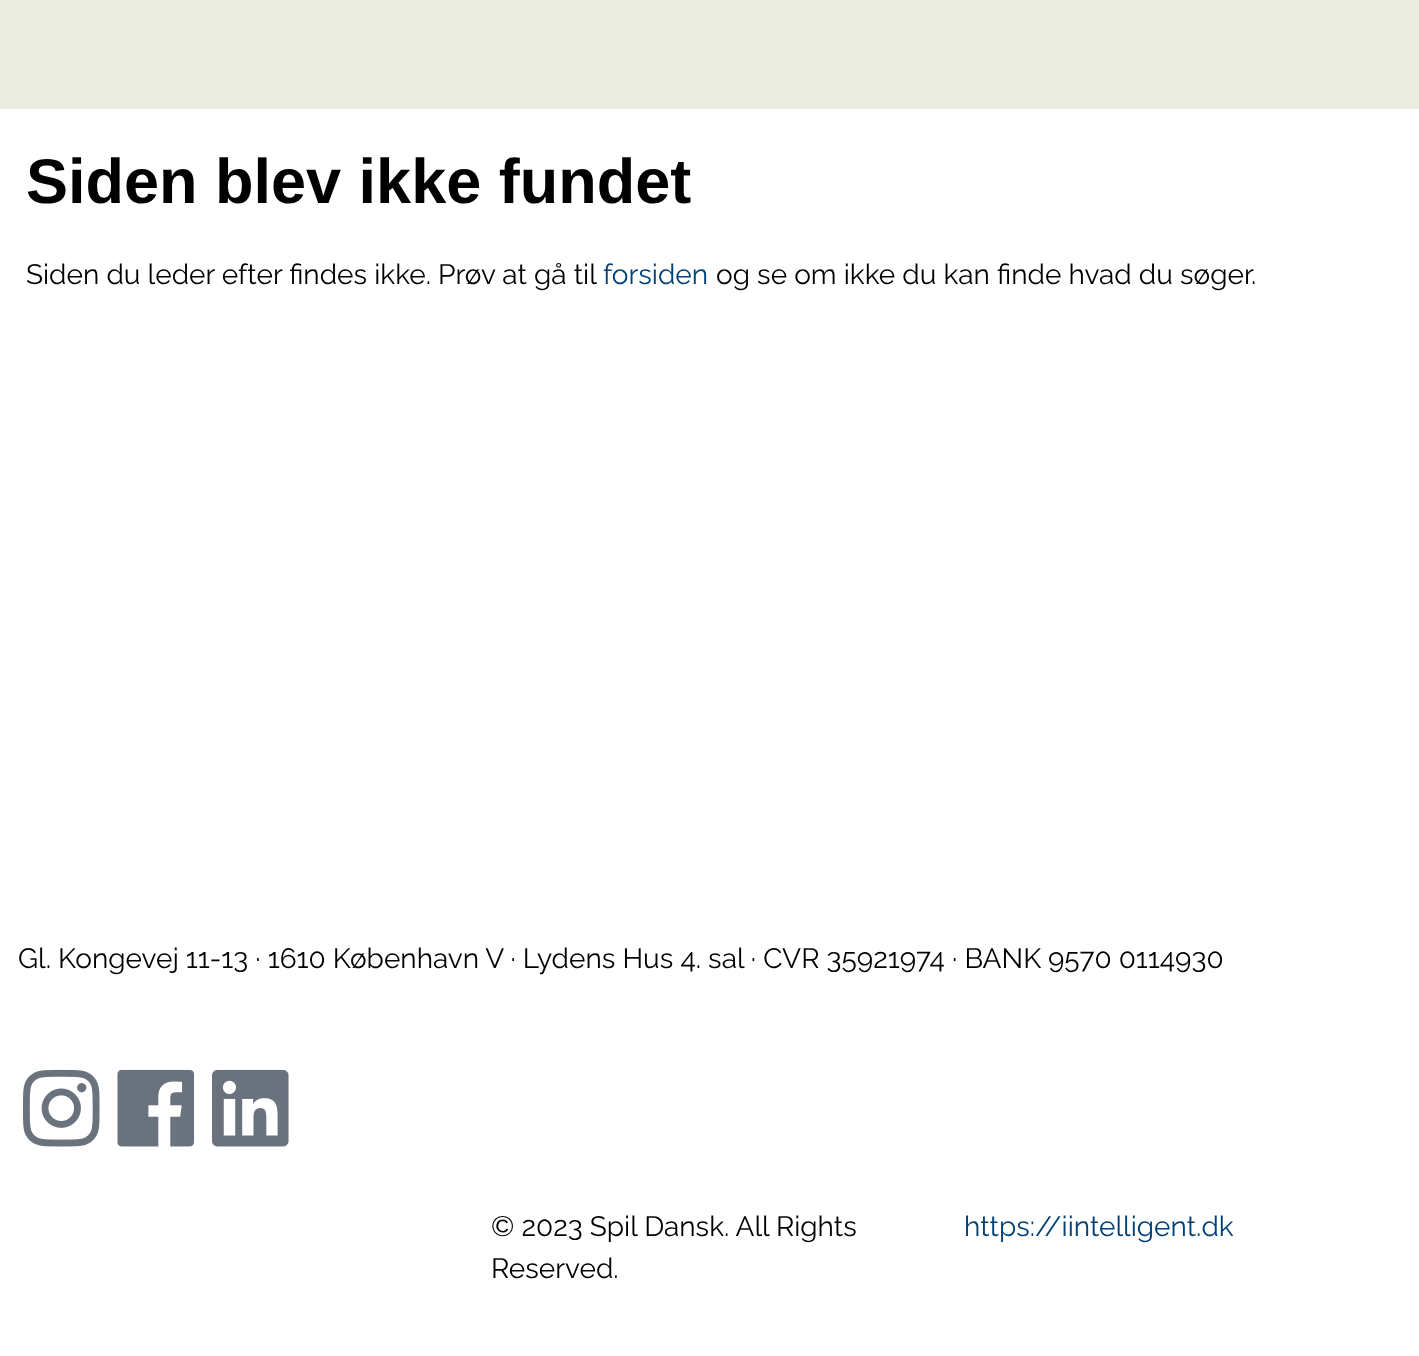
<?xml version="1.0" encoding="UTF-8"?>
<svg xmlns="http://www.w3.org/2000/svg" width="1419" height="1356">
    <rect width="100%" height="100%" fill="#FFFFFF"/>
    <rect x="0" y="0" width="1419" height="109" fill="#EAEBE1"/>
    <text x="26" y="203" font-family="Liberation Sans" font-size="63" font-weight="700" fill="#000000">Siden blev ikke fundet</text>
    <text x="26" y="284" font-family="Raleway" font-size="28" fill="#000000">Siden du leder efter findes ikke. Prøv at gå til</text>
    <text x="603" y="284" font-family="Raleway" font-size="28" fill="#004077">forsiden</text>
    <text x="716" y="284" font-family="Raleway" font-size="28" fill="#000000">og se om ikke du kan finde hvad du søger.</text>
    <text x="18" y="968" font-family="Raleway" font-size="28" fill="#000000">Gl. Kongevej 11-13 · 1610 København V · Lydens Hus 4. sal · CVR 35921974 · BANK 9570 0114930</text>
    <image x="22" y="1069" width="78" height="78" href="img_01.png"/>
    <image x="117" y="1069" width="78" height="78" href="img_02.png"/>
    <image x="211" y="1069" width="78" height="78" href="img_03.png"/>
    <text font-family="Raleway" font-size="28" fill="#000000">
        <tspan x="491" y="1236">© 2023 Spil Dansk. All Rights</tspan>
        <tspan x="491" y="1278">Reserved.</tspan>
    </text>
    <text x="964" y="1236" font-family="Raleway" font-size="28" fill="#004077">https://iintelligent.dk</text>
</svg>
